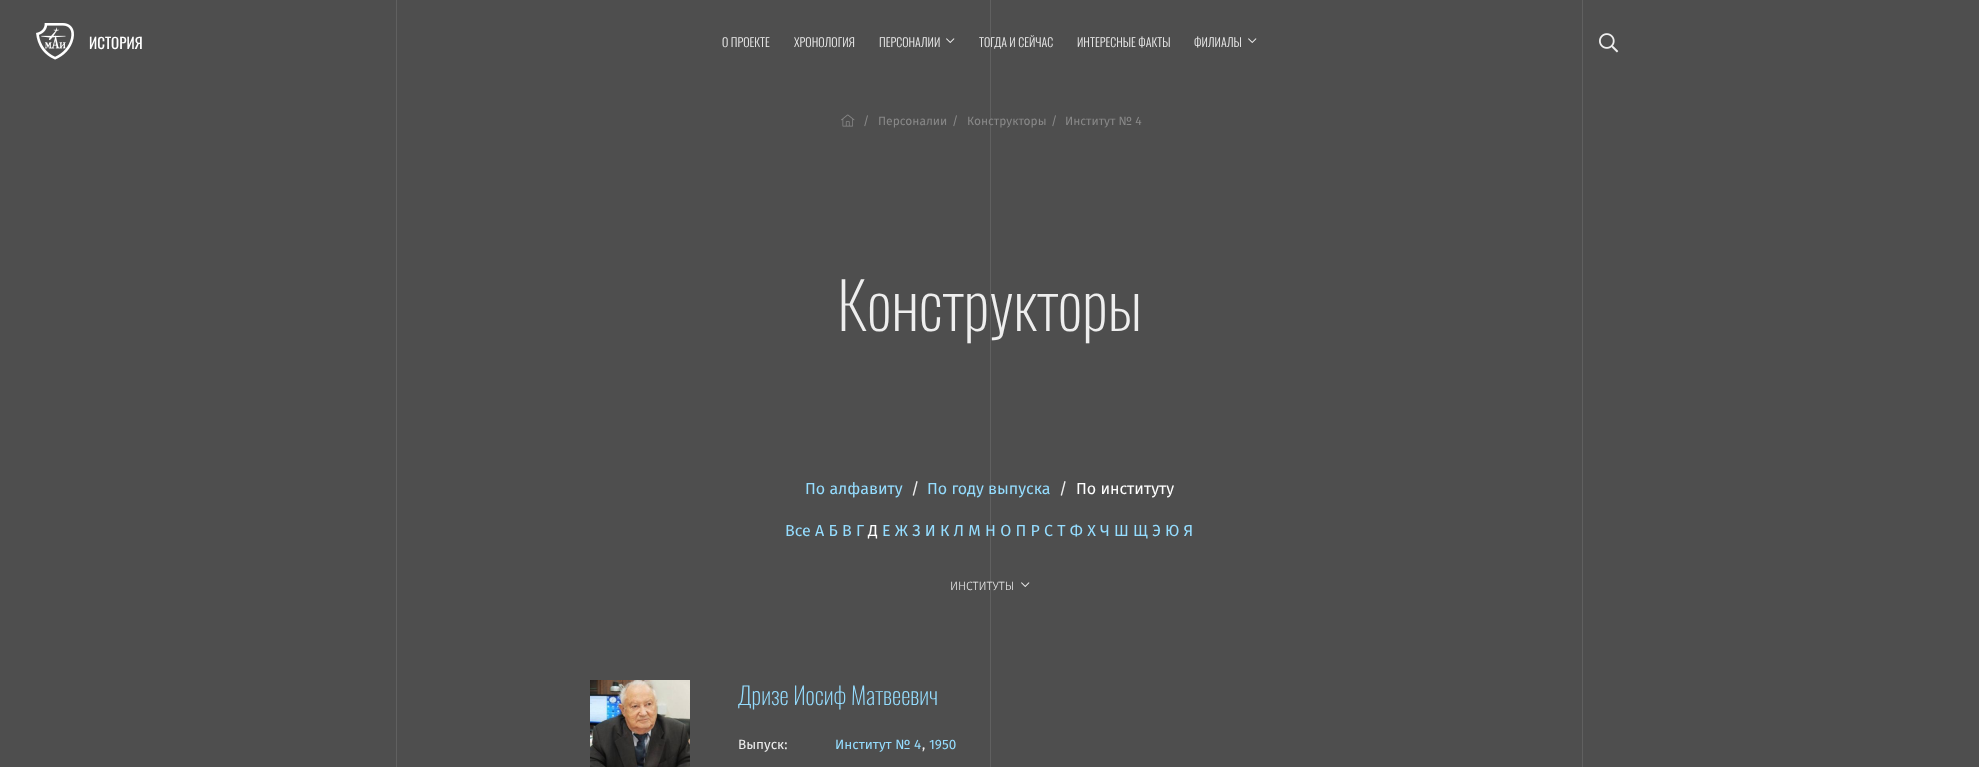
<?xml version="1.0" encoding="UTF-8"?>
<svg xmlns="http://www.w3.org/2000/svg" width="1979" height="767">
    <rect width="100%" height="100%" fill="#4E4E4E"/>
    <rect x="396" y="0" width="1" height="767" fill="#606060"/>
    <rect x="990" y="0" width="1" height="767" fill="#FFFFFF" fill-opacity="0.1"/>
    <rect x="1582" y="0" width="1" height="767" fill="#606060"/>
    <image x="36" y="23" width="38" height="37" href="img_01.png"/>
    <text x="89" y="49" font-family="Oswald" font-size="15" fill="#FFFFFF">ИСТОРИЯ</text>
    <text x="722" y="47" font-family="Oswald" font-size="12" font-weight="300" fill="#EEEEEE">О ПРОЕКТЕ</text>
    <text x="794" y="47" font-family="Oswald" font-size="12" font-weight="300" fill="#EEEEEE">ХРОНОЛОГИЯ</text>
    <text x="879" y="47" font-family="Oswald" font-size="12" font-weight="300" fill="#EEEEEE">ПЕРСОНАЛИИ</text>
    <image x="946" y="38" width="9" height="5" href="img_02.png"/>
    <text x="979" y="47" font-family="Oswald" font-size="12" font-weight="300" fill="#EEEEEE">ТОГДА И СЕЙЧАС</text>
    <text x="1077" y="47" font-family="Oswald" font-size="12" font-weight="300" fill="#EEEEEE">ИНТЕРЕСНЫЕ ФАКТЫ</text>
    <text x="1194" y="47" font-family="Oswald" font-size="12" font-weight="300" fill="#EEEEEE">ФИЛИАЛЫ</text>
    <image x="1248" y="38" width="9" height="5" href="img_02.png"/>
    <image x="1599" y="33" width="20" height="20" href="img_03.png"/>
    <image x="841" y="114" width="14" height="13" href="img_04.png"/>
    <text x="863" y="125" font-family="Fira Sans" font-size="12" fill="#888888">/</text>
    <text x="878" y="125" font-family="Fira Sans" font-size="12" fill="#888888">Персоналии</text>
    <text x="952" y="125" font-family="Fira Sans" font-size="12" fill="#888888">/</text>
    <text x="967" y="125" font-family="Fira Sans" font-size="12" fill="#888888">Конструкторы</text>
    <text x="1051" y="125" font-family="Fira Sans" font-size="12" fill="#888888">/</text>
    <text x="1065" y="125" font-family="Fira Sans" font-size="12" fill="#888888">Институт № 4</text>
    <text x="837" y="331" font-family="Oswald" font-size="64" font-weight="200" fill="#EEEEEE">Конструкторы</text>
    <text x="805" y="494" font-family="Fira Sans" font-size="16" fill="#95DDFF">По алфавиту</text>
    <text x="911" y="494" font-family="Fira Sans" font-size="16" fill="#EEEEEE">/</text>
    <text x="927" y="494" font-family="Fira Sans" font-size="16" fill="#95DDFF">По году выпуска</text>
    <text x="1059" y="494" font-family="Fira Sans" font-size="16" fill="#EEEEEE">/</text>
    <text x="1076" y="494" font-family="Fira Sans" font-size="16" fill="#FFFFFF">По институту</text>
    <text x="785" y="536" font-family="Fira Sans" font-size="16" fill="#95DDFF">Все А Б В Г</text>
    <text x="868" y="536" font-family="Fira Sans" font-size="16" fill="#FFFFFF">Д</text>
    <text x="882" y="536" font-family="Fira Sans" font-size="16" fill="#95DDFF">Е Ж З И К Л М Н О П Р С Т Ф Х Ч Ш Щ Э Ю Я</text>
    <text x="950" y="590" font-family="Fira Sans" font-size="12" font-weight="300" fill="#EEEEEE">ИНСТИТУТЫ</text>
    <image x="1021" y="582" width="9" height="5" href="img_02.png"/>
    <image x="590" y="680" width="100" height="87" href="img_05.png"/>
    <text x="738" y="705" font-family="Oswald" font-size="24" font-weight="200" fill="#95DDFF">Дризе Иосиф Матвеевич</text>
    <text x="738" y="749" font-family="Fira Sans" font-size="13.5" fill="#EEEEEE">Выпуск:</text>
    <text x="835" y="749" font-family="Fira Sans" font-size="13.5" fill="#95DDFF">Институт № 4</text>
    <text x="922" y="749" font-family="Fira Sans" font-size="13.5" fill="#EEEEEE">,</text>
    <text x="929" y="749" font-family="Fira Sans" font-size="13.5" fill="#95DDFF">1950</text>
</svg>
